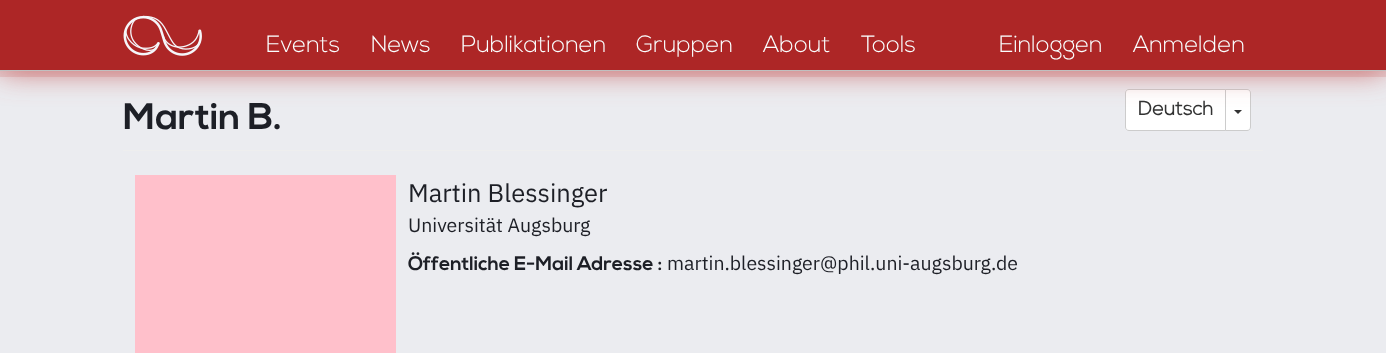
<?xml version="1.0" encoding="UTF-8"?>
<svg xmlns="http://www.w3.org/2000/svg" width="1386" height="353">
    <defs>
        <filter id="blur1" x="-50%" y="-200%" width="200%" height="500%"><feGaussianBlur stdDeviation="15"/></filter>
    </defs>
    <rect width="100%" height="100%" fill="#EBECF0"/>
    <rect x="0" y="71" width="1386" height="6" fill="#E4D1D4"/>
    <path d="M 1129 89.5 H 1225.5 V 130.5 H 1129 C 1127 130.5 1125.5 129 1125.5 127 V 93 C 1125.5 91 1127 89.5 1129 89.5 Z" fill="#FFFFFF" stroke="#CCCCCC"/>
    <path d="M 1225.5 89.5 H 1247 C 1249 89.5 1250.5 91 1250.5 93 V 127 C 1250.5 129 1249 130.5 1247 130.5 H 1225.5 Z" fill="#FFFFFF" stroke="#CCCCCC"/>
    <path d="M 1234 110 H 1242 L 1238 114 Z" fill="#333333"/>
    <rect x="0" y="0" width="1386" height="71" fill="#C86464" filter="url(#blur1)"/>
    <rect x="0" y="0" width="1386" height="70" fill="#AD2626"/>
    <rect x="0" y="70" width="1386" height="1" fill="#C0C0C0"/>
    <image x="123" y="15" width="79" height="41" href="img_01.png"/>
    <text x="266" y="52" font-family="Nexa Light" font-size="23.5" font-weight="300" fill="#FAFFFF">Events</text>
    <text x="371" y="52" font-family="Nexa Light" font-size="23.5" font-weight="300" fill="#FAFFFF">News</text>
    <text x="461" y="52" font-family="Nexa Light" font-size="23.5" font-weight="300" fill="#FAFFFF">Publikationen</text>
    <text x="636" y="52" font-family="Nexa Light" font-size="23.5" font-weight="300" fill="#FAFFFF">Gruppen</text>
    <text x="763" y="52" font-family="Nexa Light" font-size="23.5" font-weight="300" fill="#FAFFFF">About</text>
    <text x="861" y="52" font-family="Nexa Light" font-size="23.5" font-weight="300" fill="#FAFFFF">Tools</text>
    <text x="999" y="52" font-family="Nexa Light" font-size="23.5" font-weight="300" fill="#FAFFFF">Einloggen</text>
    <text x="1133" y="52" font-family="Nexa Light" font-size="23.5" font-weight="300" fill="#FAFFFF">Anmelden</text>
    <rect x="123" y="150" width="1140" height="1" fill="#EEEEEE"/>
    <text x="123" y="129" font-family="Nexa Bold" font-size="37" font-weight="700" fill="#1D1F26">Martin B.</text>
    <rect x="135" y="175" width="261" height="178" fill="#FFC0CB"/>
    <text x="408" y="202" font-family="IBM Plex Sans" font-size="25.5" fill="#1D1F26">Martin Blessinger</text>
    <text x="408" y="232" font-family="IBM Plex Sans" font-size="19.5" fill="#1D1F26">Universität Augsburg</text>
    <text x="408" y="270" font-family="Nexa Bold" font-size="19.5" font-weight="700" fill="#1D1F26">Öffentliche E-Mail Adresse :</text>
    <text x="667" y="270" font-family="IBM Plex Sans" font-size="19.5" fill="#1D1F26">martin.blessinger@phil.uni-augsburg.de</text>
    <text x="1138" y="115" font-family="Nexa Light" font-size="19.5" font-weight="700" fill="#333333">Deutsch</text>
</svg>
